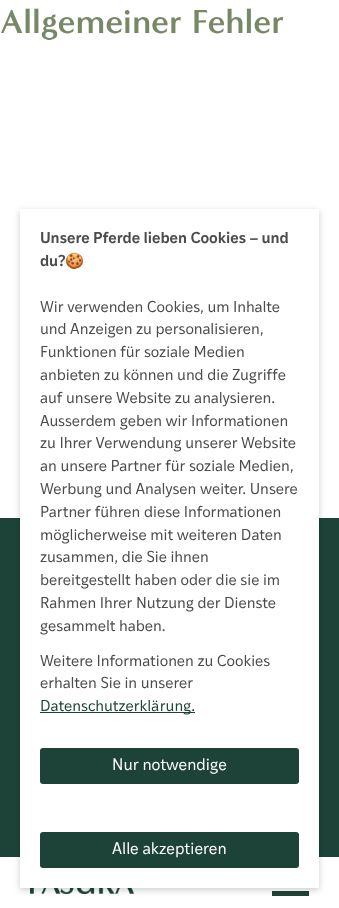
<?xml version="1.0" encoding="UTF-8"?>
<svg xmlns="http://www.w3.org/2000/svg" width="339" height="908">
    <defs>
        <filter id="blur1" x="-50%" y="-200%" width="200%" height="500%"><feGaussianBlur stdDeviation="3"/></filter>
    </defs>
    <rect width="100%" height="100%" fill="#FFFFFF"/>
    <text x="0" y="33" font-family="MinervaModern" font-size="34" font-weight="700" fill="#768866">Allgemeiner Fehler</text>
    <rect x="0" y="518" width="339" height="339" fill="#1D4338"/>
    <image x="30" y="888" width="104" height="6" href="img_01.png"/>
    <rect x="272" y="891" width="37" height="5" fill="#1D4338"/>
    <rect x="20" y="211" width="299" height="679" fill="#000000" fill-opacity="0.2" filter="url(#blur1)"/>
    <rect x="20" y="209" width="299" height="679" fill="#FFFFFF"/>
    <text font-family="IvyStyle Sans" font-size="15.25" font-weight="600" fill="#4B4B4B">
        <tspan x="40" y="243">Unsere Pferde lieben Cookies – und</tspan>
        <tspan x="40" y="266">du?</tspan>
    </text>
    <text x="65" y="266" font-family="Noto Color Emoji" font-size="15.25" fill="#4B4B4B">🍪</text>
    <text font-family="IvyStyle Sans" font-size="15.25" fill="#4B4B4B">
        <tspan x="40" y="312">Wir verwenden Cookies, um Inhalte</tspan>
        <tspan x="40" y="334">und Anzeigen zu personalisieren,</tspan>
        <tspan x="40" y="357">Funktionen für soziale Medien</tspan>
        <tspan x="40" y="380">anbieten zu können und die Zugriffe</tspan>
        <tspan x="40" y="403">auf unsere Website zu analysieren.</tspan>
        <tspan x="40" y="426">Ausserdem geben wir Informationen</tspan>
        <tspan x="40" y="448">zu Ihrer Verwendung unserer Website</tspan>
        <tspan x="40" y="471">an unsere Partner für soziale Medien,</tspan>
        <tspan x="40" y="494">Werbung und Analysen weiter. Unsere</tspan>
        <tspan x="40" y="517">Partner führen diese Informationen</tspan>
        <tspan x="40" y="540">möglicherweise mit weiteren Daten</tspan>
        <tspan x="40" y="562">zusammen, die Sie ihnen</tspan>
        <tspan x="40" y="585">bereitgestellt haben oder die sie im</tspan>
        <tspan x="40" y="608">Rahmen Ihrer Nutzung der Dienste</tspan>
        <tspan x="40" y="631">gesammelt haben.</tspan>
    </text>
    <text font-family="IvyStyle Sans" font-size="15.25" fill="#4B4B4B">
        <tspan x="40" y="666">Weitere Informationen zu Cookies</tspan>
        <tspan x="40" y="688">erhalten Sie in unserer</tspan>
    </text>
    <rect x="40" y="712" width="155" height="1" fill="#1D4338"/>
    <text x="40" y="711" font-family="IvyStyle Sans" font-size="15.25" fill="#1D4338">Datenschutzerklärung.</text>
    <rect x="40" y="748" width="259" height="36" rx="3" fill="#1D4338"/>
    <text x="112" y="770" font-family="IvyStyle Sans" font-size="16" fill="#FFFFFF">Nur notwendige</text>
    <rect x="40" y="832" width="259" height="36" rx="3" fill="#1D4338"/>
    <text x="112" y="854" font-family="IvyStyle Sans" font-size="16" fill="#FFFFFF">Alle akzeptieren</text>
</svg>
